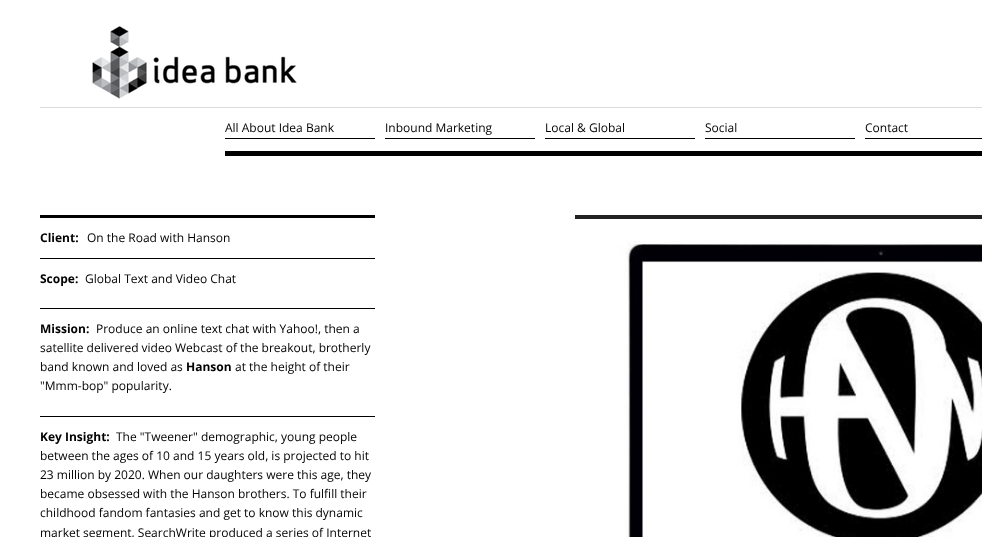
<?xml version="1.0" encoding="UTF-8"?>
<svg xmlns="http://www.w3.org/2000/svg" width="982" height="537">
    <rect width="100%" height="100%" fill="#FFFFFF"/>
    <image x="92" y="26" width="205" height="73" href="img_01.png"/>
    <rect x="40" y="107" width="942" height="1" fill="#DCDCDC"/>
    <rect x="225" y="138" width="150" height="1" fill="#000000"/>
    <text x="225" y="132" font-family="Open Sans" font-size="12" fill="#000000">All About Idea Bank</text>
    <rect x="385" y="138" width="150" height="1" fill="#000000"/>
    <text x="385" y="132" font-family="Open Sans" font-size="12" fill="#000000">Inbound Marketing</text>
    <rect x="545" y="138" width="150" height="1" fill="#000000"/>
    <text x="545" y="132" font-family="Open Sans" font-size="12" fill="#000000">Local &amp; Global</text>
    <rect x="705" y="138" width="150" height="1" fill="#000000"/>
    <text x="705" y="132" font-family="Open Sans" font-size="12" fill="#000000">Social</text>
    <rect x="865" y="138" width="117" height="1" fill="#000000"/>
    <text x="865" y="132" font-family="Open Sans" font-size="12" fill="#000000">Contact</text>
    <rect x="225" y="151" width="757" height="5" fill="#000000"/>
    <rect x="40" y="215" width="335" height="3" fill="#000000"/>
    <rect x="40" y="258" width="335" height="1" fill="#000000"/>
    <text x="40" y="242" font-family="Open Sans" font-size="12" font-weight="700" fill="#000000">Client:</text>
    <text x="87" y="242" font-family="Open Sans" font-size="12" fill="#000000">On the Road with Hanson</text>
    <text x="40" y="283" font-family="Open Sans" font-size="12" font-weight="700" fill="#000000">Scope:</text>
    <text x="85" y="283" font-family="Open Sans" font-size="12" fill="#000000">Global Text and Video Chat</text>
    <rect x="40" y="308" width="335" height="1" fill="#000000"/>
    <text x="40" y="333" font-family="Open Sans" font-size="12" font-weight="700" fill="#000000">Mission:</text>
    <text x="96" y="333" font-family="Open Sans" font-size="12" fill="#000000">Produce an online text chat with Yahoo!, then a</text>
    <text font-family="Open Sans" font-size="12" fill="#000000">
        <tspan x="40" y="352">satellite delivered video Webcast of the breakout, brotherly</tspan>
        <tspan x="40" y="371">band known and loved as</tspan>
    </text>
    <text x="186" y="371" font-family="Open Sans" font-size="12" font-weight="700" fill="#000000">Hanson</text>
    <text x="235" y="371" font-family="Open Sans" font-size="12" fill="#000000">at the height of their</text>
    <text x="40" y="390" font-family="Open Sans" font-size="12" fill="#000000">"Mmm-bop" popularity.</text>
    <rect x="40" y="416" width="335" height="1" fill="#000000"/>
    <text x="40" y="441" font-family="Open Sans" font-size="12" font-weight="700" fill="#000000">Key Insight:</text>
    <text x="116" y="441" font-family="Open Sans" font-size="12" fill="#000000">The "Tweener" demographic, young people</text>
    <text font-family="Open Sans" font-size="12" fill="#000000">
        <tspan x="40" y="460">between the ages of 10 and 15 years old, is projected to hit</tspan>
        <tspan x="40" y="479">23 million by 2020. When our daughters were this age, they</tspan>
        <tspan x="40" y="498">became obsessed with the Hanson brothers. To fulfill their</tspan>
        <tspan x="40" y="517">childhood fandom fantasies and get to know this dynamic</tspan>
        <tspan x="40" y="537">market segment, SearchWrite produced a series of Internet</tspan>
    </text>
    <rect x="575" y="215" width="407" height="4" fill="#222222"/>
    <image x="575" y="219" width="407" height="318" href="img_02.png"/>
</svg>
